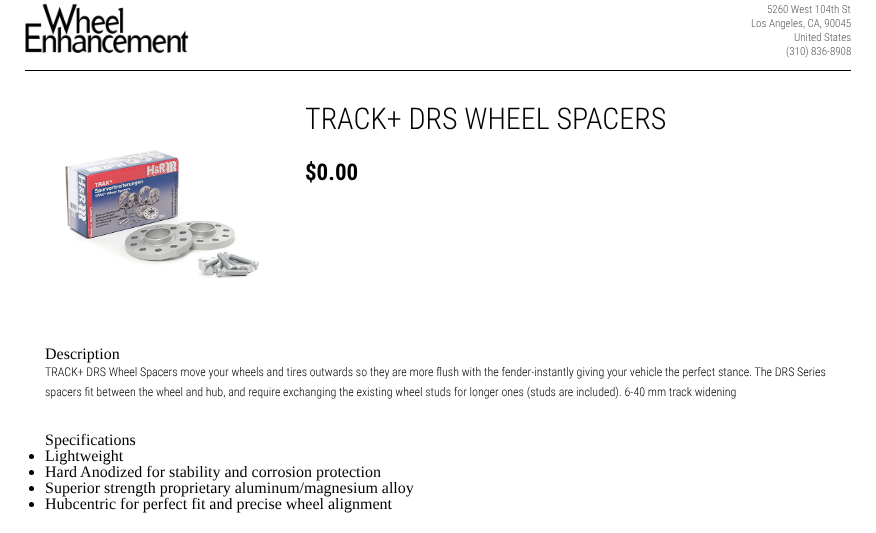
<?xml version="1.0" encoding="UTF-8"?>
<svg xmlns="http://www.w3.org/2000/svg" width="876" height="533">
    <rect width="100%" height="100%" fill="#FFFFFF"/>
    <rect x="25" y="70" width="826" height="1" fill="#000000"/>
    <image x="25" y="3" width="164" height="50" href="img_01.png"/>
    <text x="767" y="13" font-family="Roboto Condensed" font-size="11" font-weight="300" fill="#575757">5260 West 104th St</text>
    <text x="751" y="27" font-family="Roboto Condensed" font-size="11" font-weight="300" fill="#575757">Los Angeles, CA, 90045</text>
    <text x="794" y="41" font-family="Roboto Condensed" font-size="11" font-weight="300" fill="#575757">United States</text>
    <text x="786" y="55" font-family="Roboto Condensed" font-size="11" font-weight="300" fill="#575757">(310) 836-8908</text>
    <text x="305" y="129" font-family="Roboto Condensed" font-size="30" font-weight="300" fill="#000000">TRACK+ DRS WHEEL SPACERS</text>
    <image x="65" y="150" width="194" height="129" href="img_02.png"/>
    <text x="305" y="180" font-family="Roboto Condensed" font-size="23" font-weight="700" fill="#000000">$0.00</text>
    <text x="45" y="359" font-family="Liberation Serif" font-size="16" fill="#000000">Description</text>
    <text font-family="Roboto Condensed" font-size="12" font-weight="300" fill="#000000">
        <tspan x="45" y="376">TRACK+ DRS Wheel Spacers move your wheels and tires outwards so they are more flush with the fender-instantly giving your vehicle the perfect stance. The DRS Series</tspan>
        <tspan x="45" y="396">spacers fit between the wheel and hub, and require exchanging the existing wheel studs for longer ones (studs are included). 6-40 mm track widening</tspan>
    </text>
    <text x="45" y="445" font-family="Liberation Serif" font-size="16" fill="#000000">Specifications</text>
    <circle cx="31.5" cy="456.5" r="2.5" fill="#000000"/>
    <text x="45" y="461" font-family="Liberation Serif" font-size="16" fill="#000000">Lightweight</text>
    <circle cx="31.5" cy="472.5" r="2.5" fill="#000000"/>
    <text x="45" y="477" font-family="Liberation Serif" font-size="16" fill="#000000">Hard Anodized for stability and corrosion protection</text>
    <circle cx="31.5" cy="488.5" r="2.5" fill="#000000"/>
    <text x="45" y="493" font-family="Liberation Serif" font-size="16" fill="#000000">Superior strength proprietary aluminum/magnesium alloy</text>
    <circle cx="31.5" cy="504.5" r="2.5" fill="#000000"/>
    <text x="45" y="509" font-family="Liberation Serif" font-size="16" fill="#000000">Hubcentric for perfect fit and precise wheel alignment</text>
</svg>
